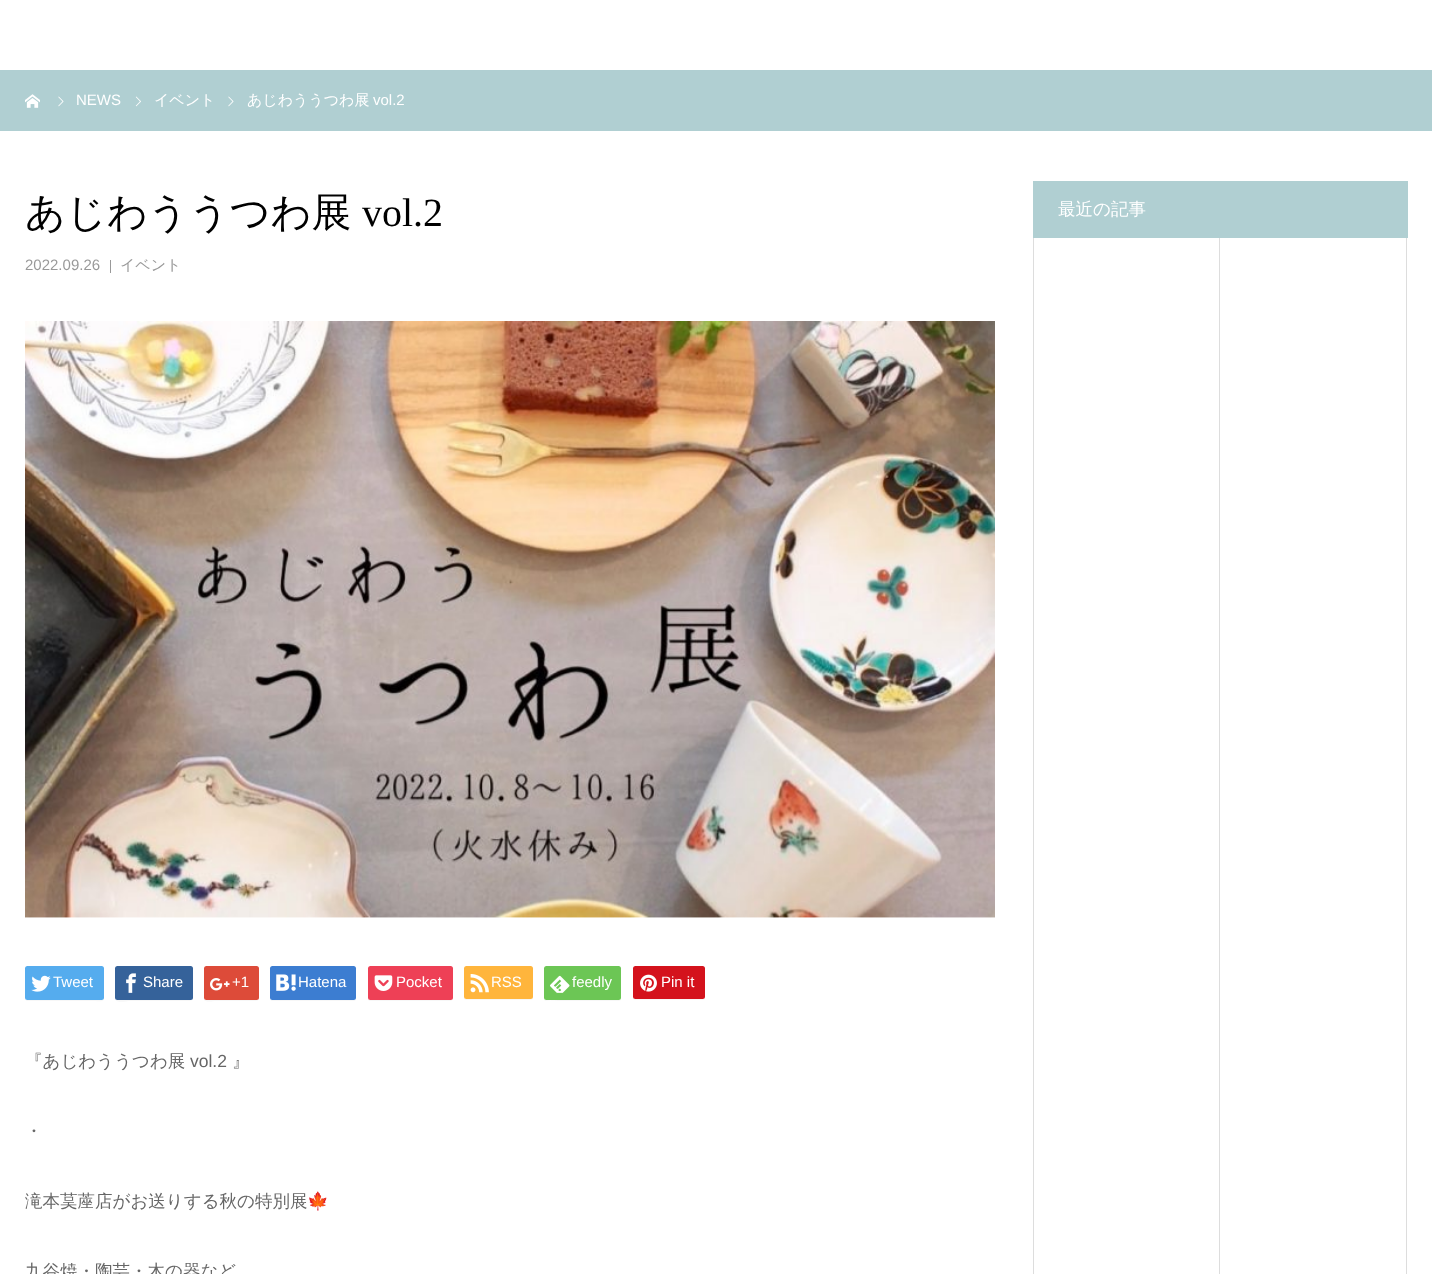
<?xml version="1.0" encoding="UTF-8"?>
<svg xmlns="http://www.w3.org/2000/svg" width="1432" height="1274">
    <rect width="100%" height="100%" fill="#FFFFFF"/>
    <rect x="0" y="70" width="1432" height="61" fill="#B0CFD2"/>
    <image x="25" y="94" width="15" height="14" href="img_01.png"/>
    <image x="58" y="96" width="6" height="11" href="img_02.png"/>
    <text x="76" y="105" font-family="Liberation Sans" font-size="15" fill="#FFFFFF">NEWS</text>
    <image x="135" y="96" width="6" height="11" href="img_03.png"/>
    <text x="154" y="105" font-family="WenQuanYi Zen Hei" font-size="15" font-weight="500" fill="#FFFFFF">イベント</text>
    <image x="228" y="96" width="6" height="11" href="img_02.png"/>
    <text x="247" y="105" font-family="WenQuanYi Zen Hei" font-size="15" font-weight="500" fill="#FFFFFF">あじわううつわ展</text>
    <text x="373" y="105" font-family="Liberation Sans" font-size="15" fill="#FFFFFF">vol.2</text>
    <text x="25" y="226" font-family="WenQuanYi Zen Hei" font-size="40" font-weight="500" fill="#000000">あじわううつわ展</text>
    <text x="362" y="226" font-family="Liberation Serif" font-size="40" fill="#000000">vol.2</text>
    <text x="25" y="270" font-family="Liberation Sans" font-size="15" fill="#999999">2022.09.26</text>
    <rect x="110" y="260" width="1" height="13" fill="#999999"/>
    <text x="120" y="270" font-family="WenQuanYi Zen Hei" font-size="15" font-weight="500" fill="#999999">イベント</text>
    <image x="25" y="321" width="970" height="597" href="img_04.png"/>
    <path d="M 25 998 C 25 999 25 1000 27 1001 H 89 C 106 1001 104 1004 104 989 V 969 V 998 C 104 999 103 1000 101 1000 H 28 C 26 1000 25 999 25 998 Z" fill="#F7F7F7"/>
    <rect x="25" y="966" width="79" height="34" rx="2.5" fill="#55ACEE"/>
    <image x="31" y="975" width="20" height="17" href="img_05.png"/>
    <text x="53" y="987" font-family="Liberation Sans" font-size="15" fill="#FFFFFF">Tweet</text>
    <path d="M 115 998 C 115 1004 126 1001 130 1001 H 178 C 197 1001 193 1003 193 984 C 193 982 194 971 192 969 V 998 C 192 999 191 1000 190 1000 H 118 C 116 1000 115 999 115 998 Z" fill="#F7F7F7"/>
    <rect x="115" y="966" width="78" height="34" rx="2.5" fill="#35629A"/>
    <image x="126" y="973" width="10" height="20" href="img_06.png"/>
    <text x="143" y="987" font-family="Liberation Sans" font-size="15" fill="#FFFFFF">Share</text>
    <path d="M 204 999 C 204 1003 214 1001 215 1001 H 248 C 261 1001 259 1002 259 989 V 969 V 998 C 259 999 258 1000 256 1000 H 206 C 205 1000 204 999 204 999 Z" fill="#F7F7F7"/>
    <rect x="204" y="966" width="55" height="34" rx="2.5" fill="#DD4B39"/>
    <image x="210" y="978" width="20" height="13" href="img_07.png"/>
    <text x="232" y="987" font-family="Liberation Sans" font-size="15" fill="#FFFFFF">+1</text>
    <path d="M 270 998 C 270 1000 271 1001 272 1001 H 354 C 355 1001 356 1000 356 999 C 356 999 355 1000 354 1000 H 272 C 271 1000 270 999 270 998 Z" fill="#F7F7F7"/>
    <rect x="270" y="966" width="86" height="34" rx="2.5" fill="#3C7DD1"/>
    <image x="276" y="974" width="20" height="17" href="img_08.png"/>
    <text x="298" y="987" font-family="Liberation Sans" font-size="15" fill="#FFFFFF">Hatena</text>
    <path d="M 368 999 C 368 1000 369 1001 370 1001 H 450 C 452 1001 453 1000 453 998 V 970 L 452 969 V 998 C 452 999 451 1000 450 1000 H 370 Z" fill="#F7F7F7"/>
    <rect x="368" y="966" width="85" height="34" rx="2.5" fill="#EE4056"/>
    <image x="374" y="975" width="19" height="16" href="img_09.png"/>
    <text x="396" y="987" font-family="Liberation Sans" font-size="15" fill="#FFFFFF">Pocket</text>
    <path d="M 464 997 V 998 C 464 999 465 1000 466 1000 H 530 C 532 1000 533 999 533 998 V 970 L 532 969 V 996 C 532 998 531 999 530 999 H 466 C 465 999 464 998 464 997 Z" fill="#F7F7F7"/>
    <rect x="464" y="966" width="69" height="33" rx="2.5" fill="#FFB53C"/>
    <image x="470" y="974" width="19" height="19" href="img_10.png"/>
    <text x="491" y="987" font-family="Liberation Sans" font-size="15" fill="#FFFFFF">RSS</text>
    <path d="M 544 999 C 544 1000 545 1001 546 1001 H 618 C 620 1001 621 1000 621 999 L 620 1000 H 558 C 558 1000 546 1002 544 999 Z" fill="#F7F7F7"/>
    <rect x="544" y="966" width="77" height="34" rx="2.5" fill="#6CC655"/>
    <image x="550" y="975" width="20" height="18" href="img_11.png"/>
    <text x="572" y="987" font-family="Liberation Sans" font-size="15" fill="#FFFFFF">feedly</text>
    <path d="M 633 998 C 633 999 634 1000 636 1000 H 702 C 704 1000 705 999 705 998 V 996 C 705 998 704 999 702 999 H 635 Z" fill="#F7F7F7"/>
    <rect x="633" y="966" width="72" height="33" rx="2.5" fill="#D4121C"/>
    <image x="640" y="974" width="17" height="18" href="img_12.png"/>
    <text x="661" y="987" font-family="Liberation Sans" font-size="15" fill="#FFFFFF">Pin it</text>
    <text x="25" y="1067" font-family="WenQuanYi Zen Hei" font-size="17.5" font-weight="500" fill="#666666">『あじわううつわ展</text>
    <text x="190" y="1067" font-family="Liberation Sans" font-size="17.5" fill="#666666">vol.2</text>
    <text x="232" y="1067" font-family="WenQuanYi Zen Hei" font-size="17.5" font-weight="500" fill="#666666">』</text>
    <text x="25" y="1137" font-family="WenQuanYi Zen Hei" font-size="17.5" font-weight="500" fill="#666666">・</text>
    <text x="25" y="1207" font-family="WenQuanYi Zen Hei" font-size="17.5" font-weight="500" fill="#666666">滝本茣蓙店がお送りする秋の特別展</text>
    <text x="307" y="1207" font-family="Noto Color Emoji" font-size="17.5" fill="#666666">🍁</text>
    <text x="25" y="1277" font-family="WenQuanYi Zen Hei" font-size="17.5" font-weight="500" fill="#666666">九谷焼・陶芸・木の器など</text>
    <rect x="1033" y="181" width="375" height="57" fill="#B0CFD2"/>
    <text x="1058" y="215" font-family="WenQuanYi Zen Hei" font-size="17.5" font-weight="500" fill="#FFFFFF">最近の記事</text>
    <rect x="1406" y="238" width="1" height="1036" fill="#DDDDDD"/>
    <rect x="1033" y="238" width="1" height="1036" fill="#DDDDDD"/>
    <rect x="1219" y="238" width="1" height="1036" fill="#DDDDDD"/>
</svg>
